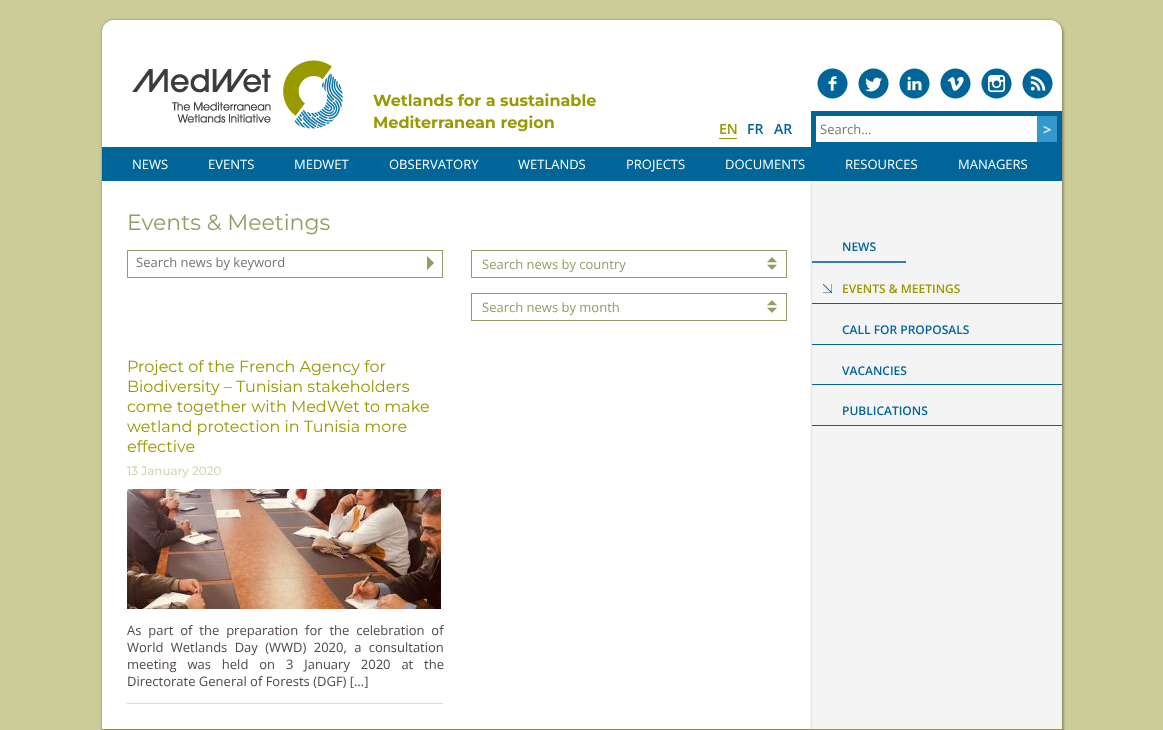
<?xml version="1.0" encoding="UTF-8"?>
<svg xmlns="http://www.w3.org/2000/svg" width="1163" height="730">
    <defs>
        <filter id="blur1" x="-50%" y="-200%" width="200%" height="500%"><feGaussianBlur stdDeviation="1"/></filter>
        <filter id="blur2" x="-50%" y="-200%" width="200%" height="500%"><feGaussianBlur stdDeviation="1.5"/></filter>
        <clipPath id="clip1"><rect x="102" y="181" width="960" height="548"/></clipPath>
    </defs>
    <rect width="100%" height="100%" fill="#CCCC99"/>
    <rect x="104" y="22" width="960" height="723" rx="12" fill="#000000" fill-opacity="0.2" filter="url(#blur1)"/>
    <rect x="102" y="20" width="960" height="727" rx="12" fill="#000000" fill-opacity="0.3" filter="url(#blur2)"/>
    <rect x="102" y="20" width="960" height="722" rx="12" fill="#FFFFFF"/>
    <image x="132" y="60" width="211" height="69" href="img_01.png"/>
    <text font-family="Montserrat" font-size="16" font-weight="700" fill="#999900">
        <tspan x="373" y="106">Wetlands for a sustainable</tspan>
        <tspan x="373" y="128">Mediterranean region</tspan>
    </text>
    <image x="817" y="68" width="31" height="31" href="img_02.png"/>
    <image x="858" y="68" width="31" height="31" href="img_03.png"/>
    <image x="899" y="68" width="31" height="31" href="img_04.png"/>
    <image x="940" y="68" width="31" height="31" href="img_05.png"/>
    <image x="981" y="68" width="31" height="31" href="img_06.png"/>
    <image x="1022" y="68" width="31" height="31" href="img_07.png"/>
    <text x="719" y="134" font-family="Open Sans" font-size="14" font-weight="600" fill="#999900">EN</text>
    <rect x="719" y="138" width="18" height="1" fill="#999900"/>
    <text x="747" y="134" font-family="Open Sans" font-size="14" font-weight="600" fill="#006699">FR</text>
    <text x="774" y="134" font-family="Open Sans" font-size="14" font-weight="600" fill="#006699">AR</text>
    <rect x="811" y="111" width="251" height="36" fill="#006699"/>
    <rect x="816" y="116" width="221" height="26" fill="#FFFFFF"/>
    <text x="820" y="134" font-family="Open Sans" font-size="13" fill="#757575">Search…</text>
    <rect x="1037" y="116" width="20" height="26" fill="#3399CC"/>
    <text x="1043" y="135" font-family="Open Sans" font-size="15" font-weight="700" fill="#D2E2E2">&gt;</text>
    <rect x="102" y="147" width="960" height="34" fill="#006699"/>
    <text x="132" y="169" font-family="Open Sans" font-size="13" fill="#FFFFFF">NEWS</text>
    <text x="208" y="169" font-family="Open Sans" font-size="13" fill="#FFFFFF">EVENTS</text>
    <text x="294" y="169" font-family="Open Sans" font-size="13" fill="#FFFFFF">MEDWET</text>
    <text x="389" y="169" font-family="Open Sans" font-size="13" fill="#FFFFFF">OBSERVATORY</text>
    <text x="518" y="169" font-family="Open Sans" font-size="13" fill="#FFFFFF">WETLANDS</text>
    <text x="626" y="169" font-family="Open Sans" font-size="13" fill="#FFFFFF">PROJECTS</text>
    <text x="725" y="169" font-family="Open Sans" font-size="13" fill="#FFFFFF">DOCUMENTS</text>
    <text x="845" y="169" font-family="Open Sans" font-size="13" fill="#FFFFFF">RESOURCES</text>
    <text x="958" y="169" font-family="Open Sans" font-size="13" fill="#FFFFFF">MANAGERS</text>
    <text x="127" y="230" font-family="Montserrat" font-size="22" fill="#999966">Events &amp; Meetings</text>
    <rect x="127.5" y="250.5" width="315" height="27" fill="none" stroke="#999966"/>
    <text x="136" y="267" font-family="Open Sans" font-size="13" fill="#757575">Search news by keyword</text>
    <image x="427" y="256" width="7" height="14" href="img_08.png"/>
    <rect x="471.5" y="250.5" width="315" height="27" fill="none" stroke="#999966"/>
    <image x="767" y="257" width="10" height="13" href="img_09.png"/>
    <text x="482" y="269" font-family="Open Sans" font-size="13" fill="#999966">Search news by country</text>
    <rect x="471.5" y="293.5" width="315" height="27" fill="none" stroke="#999966"/>
    <image x="767" y="300" width="10" height="13" href="img_09.png"/>
    <text x="482" y="312" font-family="Open Sans" font-size="13" fill="#999966">Search news by month</text>
    <rect x="127" y="703" width="316" height="1" fill="#DADADA"/>
    <text font-family="Montserrat" font-size="16" fill="#999900">
        <tspan x="127" y="372">Project of the French Agency for</tspan>
        <tspan x="127" y="392">Biodiversity – Tunisian stakeholders</tspan>
        <tspan x="127" y="412">come together with MedWet to make</tspan>
        <tspan x="127" y="432">wetland protection in Tunisia more</tspan>
        <tspan x="127" y="452">effective</tspan>
    </text>
    <text x="127" y="475" font-family="Montserrat" font-size="12" fill="#CCCC99">13 January 2020</text>
    <image x="127" y="489" width="314" height="120" href="img_10.png"/>
    <text font-family="Open Sans" font-size="13" fill="#504945">
        <tspan x="127" y="635" word-spacing="3.5">As part of the preparation for the celebration of</tspan>
        <tspan x="127" y="652" word-spacing="4">World Wetlands Day (WWD) 2020, a consultation</tspan>
        <tspan x="127" y="669" word-spacing="7.5">meeting was held on 3 January 2020 at the</tspan>
        <tspan x="127" y="686">Directorate General of Forests (DGF) […]</tspan>
    </text>
    <rect x="102" y="729" width="960" height="1" fill="#999900"/>
    <g clip-path="url(#clip1)">
        <rect x="812" y="180" width="254" height="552" fill="#000000" fill-opacity="0.3" filter="url(#blur1)"/>
    </g>
    <rect x="812" y="181" width="250" height="548" fill="#F4F4F4"/>
    <rect x="812" y="261" width="94" height="2" fill="#337DAF"/>
    <text x="842" y="251" font-family="Open Sans" font-size="12" font-weight="600" fill="#006699">NEWS</text>
    <image x="823" y="284" width="9" height="9" href="img_11.png"/>
    <rect x="812" y="303" width="250" height="1" fill="#006699"/>
    <text x="842" y="293" font-family="Open Sans" font-size="12" font-weight="600" fill="#999900">EVENTS &amp; MEETINGS</text>
    <rect x="812" y="344" width="250" height="1" fill="#006699"/>
    <text x="842" y="334" font-family="Open Sans" font-size="12" font-weight="600" fill="#006699">CALL FOR PROPOSALS</text>
    <rect x="812" y="384" width="250" height="1" fill="#006699"/>
    <text x="842" y="375" font-family="Open Sans" font-size="12" font-weight="600" fill="#006699">VACANCIES</text>
    <rect x="812" y="425" width="250" height="1" fill="#006699"/>
    <text x="842" y="415" font-family="Open Sans" font-size="12" font-weight="600" fill="#006699">PUBLICATIONS</text>
</svg>
